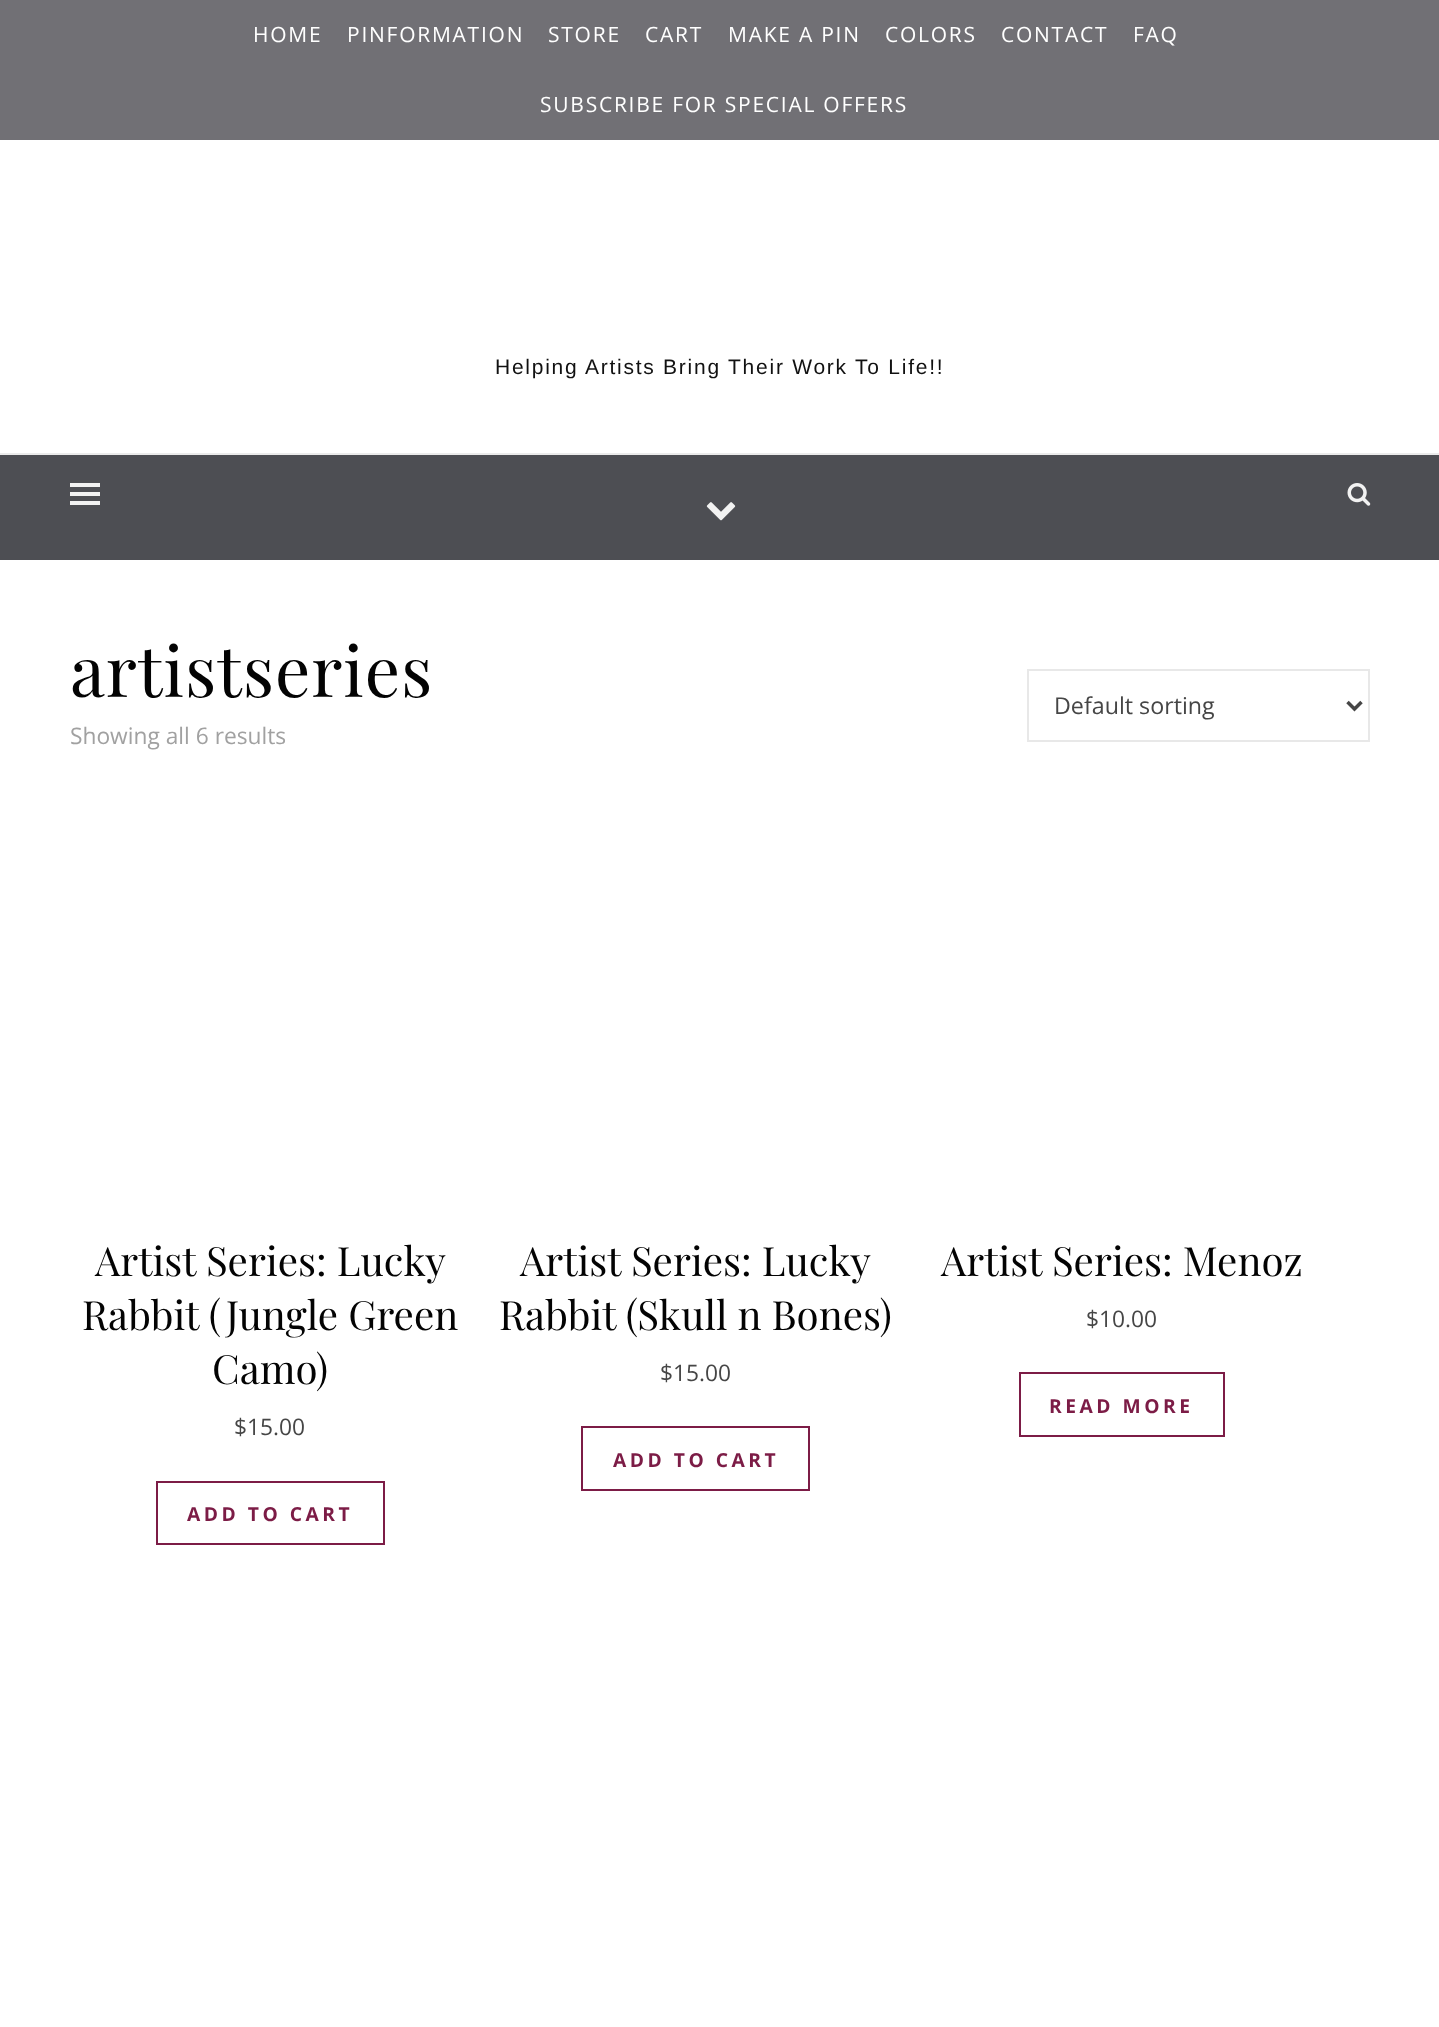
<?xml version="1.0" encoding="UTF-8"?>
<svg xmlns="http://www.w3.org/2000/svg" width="1439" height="2027">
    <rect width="100%" height="100%" fill="#FFFFFF"/>
    <rect x="0" y="0" width="1439" height="140" fill="#717075"/>
    <text x="253" y="42" font-family="Open Sans" font-size="21" letter-spacing="1.75" fill="#FFFFFF">HOME</text>
    <text x="347" y="42" font-family="Open Sans" font-size="21" letter-spacing="1.75" fill="#FFFFFF">PINFORMATION</text>
    <text x="548" y="42" font-family="Open Sans" font-size="21" letter-spacing="1.75" fill="#FFFFFF">STORE</text>
    <text x="645" y="42" font-family="Open Sans" font-size="21" letter-spacing="1.75" fill="#FFFFFF">CART</text>
    <text x="728" y="42" font-family="Open Sans" font-size="21" letter-spacing="1.75" fill="#FFFFFF">MAKE A PIN</text>
    <text x="885" y="42" font-family="Open Sans" font-size="21" letter-spacing="1.75" fill="#FFFFFF">COLORS</text>
    <text x="1001" y="42" font-family="Open Sans" font-size="21" letter-spacing="1.75" fill="#FFFFFF">CONTACT</text>
    <text x="1133" y="42" font-family="Open Sans" font-size="21" letter-spacing="1.75" fill="#FFFFFF">FAQ</text>
    <text x="540" y="112" font-family="Open Sans" font-size="21" letter-spacing="1.75" fill="#FFFFFF">SUBSCRIBE FOR SPECIAL OFFERS</text>
    <rect x="0" y="453" width="1439" height="2" fill="#EBEBEB"/>
    <text x="495" y="374" font-family="Liberation Sans" font-size="21" letter-spacing="1.75" fill="#111111">Helping Artists Bring Their Work To Life!!</text>
    <rect x="0" y="455" width="1439" height="105" fill="#4D4E53"/>
    <rect x="70" y="483" width="30" height="4" fill="#F2F2F2"/>
    <rect x="70" y="492" width="30" height="4" fill="#F2F2F2"/>
    <rect x="70" y="501" width="30" height="4" fill="#F2F2F2"/>
    <image x="1347" y="483" width="24" height="23" href="img_01.png"/>
    <image x="706" y="502" width="30" height="19" href="img_02.png"/>
    <text x="70" y="697" font-family="Playfair Display" font-size="70" letter-spacing="0.9" fill="#030303">artistseries</text>
    <rect x="1028" y="670" width="341" height="71" fill="none" stroke="#E8E8E8" stroke-width="2"/>
    <path d="M 1347.5 702 L 1354.5 709 L 1361.5 702" fill="none" stroke="#464646" stroke-width="3.5"/>
    <text x="1054" y="714" font-family="Open Sans" font-size="23.25" fill="#464646">Default sorting</text>
    <text x="70" y="744" font-family="Open Sans" font-size="22.75" fill="#A1A1A1">Showing all 6 results</text>
    <text x="95" y="1276" font-family="Playfair Display" font-size="40.25" fill="#030303">Artist Series: Lucky</text>
    <text x="82" y="1330" font-family="Playfair Display" font-size="40.25" fill="#030303">Rabbit (Jungle Green</text>
    <text x="212" y="1384" font-family="Playfair Display" font-size="40.25" fill="#030303">Camo)</text>
    <text x="234" y="1435" font-family="Open Sans" font-size="22.75" fill="#464646">$15.00</text>
    <rect x="157" y="1482" width="227" height="62" fill="none" stroke="#7C1C46" stroke-width="2"/>
    <text x="187" y="1521" font-family="Open Sans" font-size="19.25" font-weight="700" letter-spacing="3.5" fill="#7C1C46">ADD TO CART</text>
    <text x="520" y="1276" font-family="Playfair Display" font-size="40.25" fill="#030303">Artist Series: Lucky</text>
    <text x="499" y="1330" font-family="Playfair Display" font-size="40.25" fill="#030303">Rabbit (Skull n Bones)</text>
    <text x="660" y="1381" font-family="Open Sans" font-size="22.75" fill="#464646">$15.00</text>
    <rect x="582" y="1427" width="227" height="63" fill="none" stroke="#7C1C46" stroke-width="2"/>
    <text x="613" y="1467" font-family="Open Sans" font-size="19.25" font-weight="700" letter-spacing="3.5" fill="#7C1C46">ADD TO CART</text>
    <text x="941" y="1276" font-family="Playfair Display" font-size="40.25" fill="#030303">Artist Series: Menoz</text>
    <text x="1086" y="1327" font-family="Open Sans" font-size="22.75" fill="#464646">$10.00</text>
    <rect x="1020" y="1373" width="204" height="63" fill="none" stroke="#7C1C46" stroke-width="2"/>
    <text x="1049" y="1413" font-family="Open Sans" font-size="19.25" font-weight="700" letter-spacing="3.5" fill="#7C1C46">READ MORE</text>
</svg>
